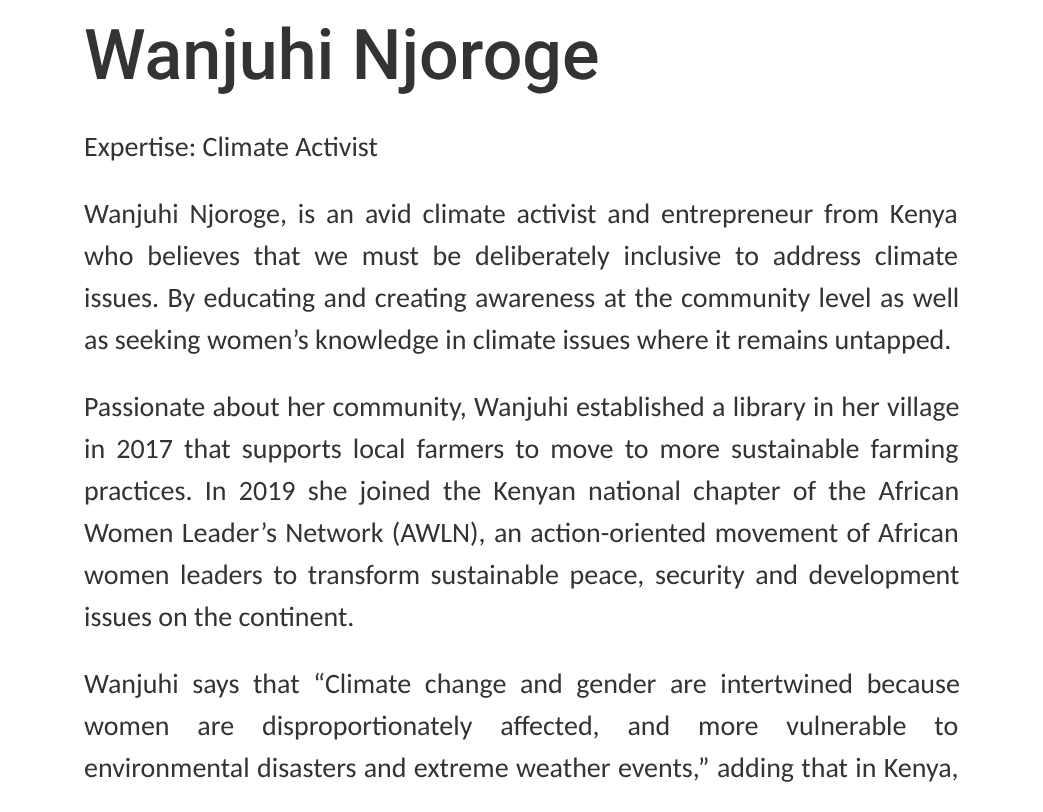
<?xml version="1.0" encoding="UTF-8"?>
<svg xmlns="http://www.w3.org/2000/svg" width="1043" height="812">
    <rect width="100%" height="100%" fill="#FFFFFF"/>
    <text x="84" y="79" font-family="Roboto" font-size="70" font-weight="500" fill="#333333">Wanjuhi Njoroge</text>
    <text x="84" y="156" font-family="Carlito" font-size="28" fill="#333333">Expertise: Climate Activist</text>
    <text font-family="Carlito" font-size="28" fill="#333333">
        <tspan x="84" y="223" word-spacing="4.5">Wanjuhi Njoroge, is an avid climate activist and entrepreneur from Kenya</tspan>
        <tspan x="84" y="265" word-spacing="7.5">who believes that we must be deliberately inclusive to address climate</tspan>
        <tspan x="84" y="307" word-spacing="2.1">issues. By educating and creating awareness at the community level as well</tspan>
        <tspan x="84" y="349">as seeking women’s knowledge in climate issues where it remains untapped.</tspan>
    </text>
    <text font-family="Carlito" font-size="28" fill="#333333">
        <tspan x="84" y="416" word-spacing="1">Passionate about her community, Wanjuhi established a library in her village</tspan>
        <tspan x="84" y="458" word-spacing="4.75">in 2017 that supports local farmers to move to more sustainable farming</tspan>
        <tspan x="84" y="500" word-spacing="5.9">practices. In 2019 she joined the Kenyan national chapter of the African</tspan>
        <tspan x="84" y="542" word-spacing="2">Women Leader’s Network (AWLN), an action-oriented movement of African</tspan>
        <tspan x="84" y="584" word-spacing="4.25">women leaders to transform sustainable peace, security and development</tspan>
        <tspan x="84" y="626">issues on the continent.</tspan>
    </text>
    <text font-family="Carlito" font-size="28" fill="#333333">
        <tspan x="84" y="693" word-spacing="7.25">Wanjuhi says that “Climate change and gender are intertwined because</tspan>
        <tspan x="84" y="735" word-spacing="21.5">women are disproportionately affected, and more vulnerable to</tspan>
        <tspan x="84" y="777" word-spacing="1">environmental disasters and extreme weather events,” adding that in Kenya,</tspan>
    </text>
</svg>
